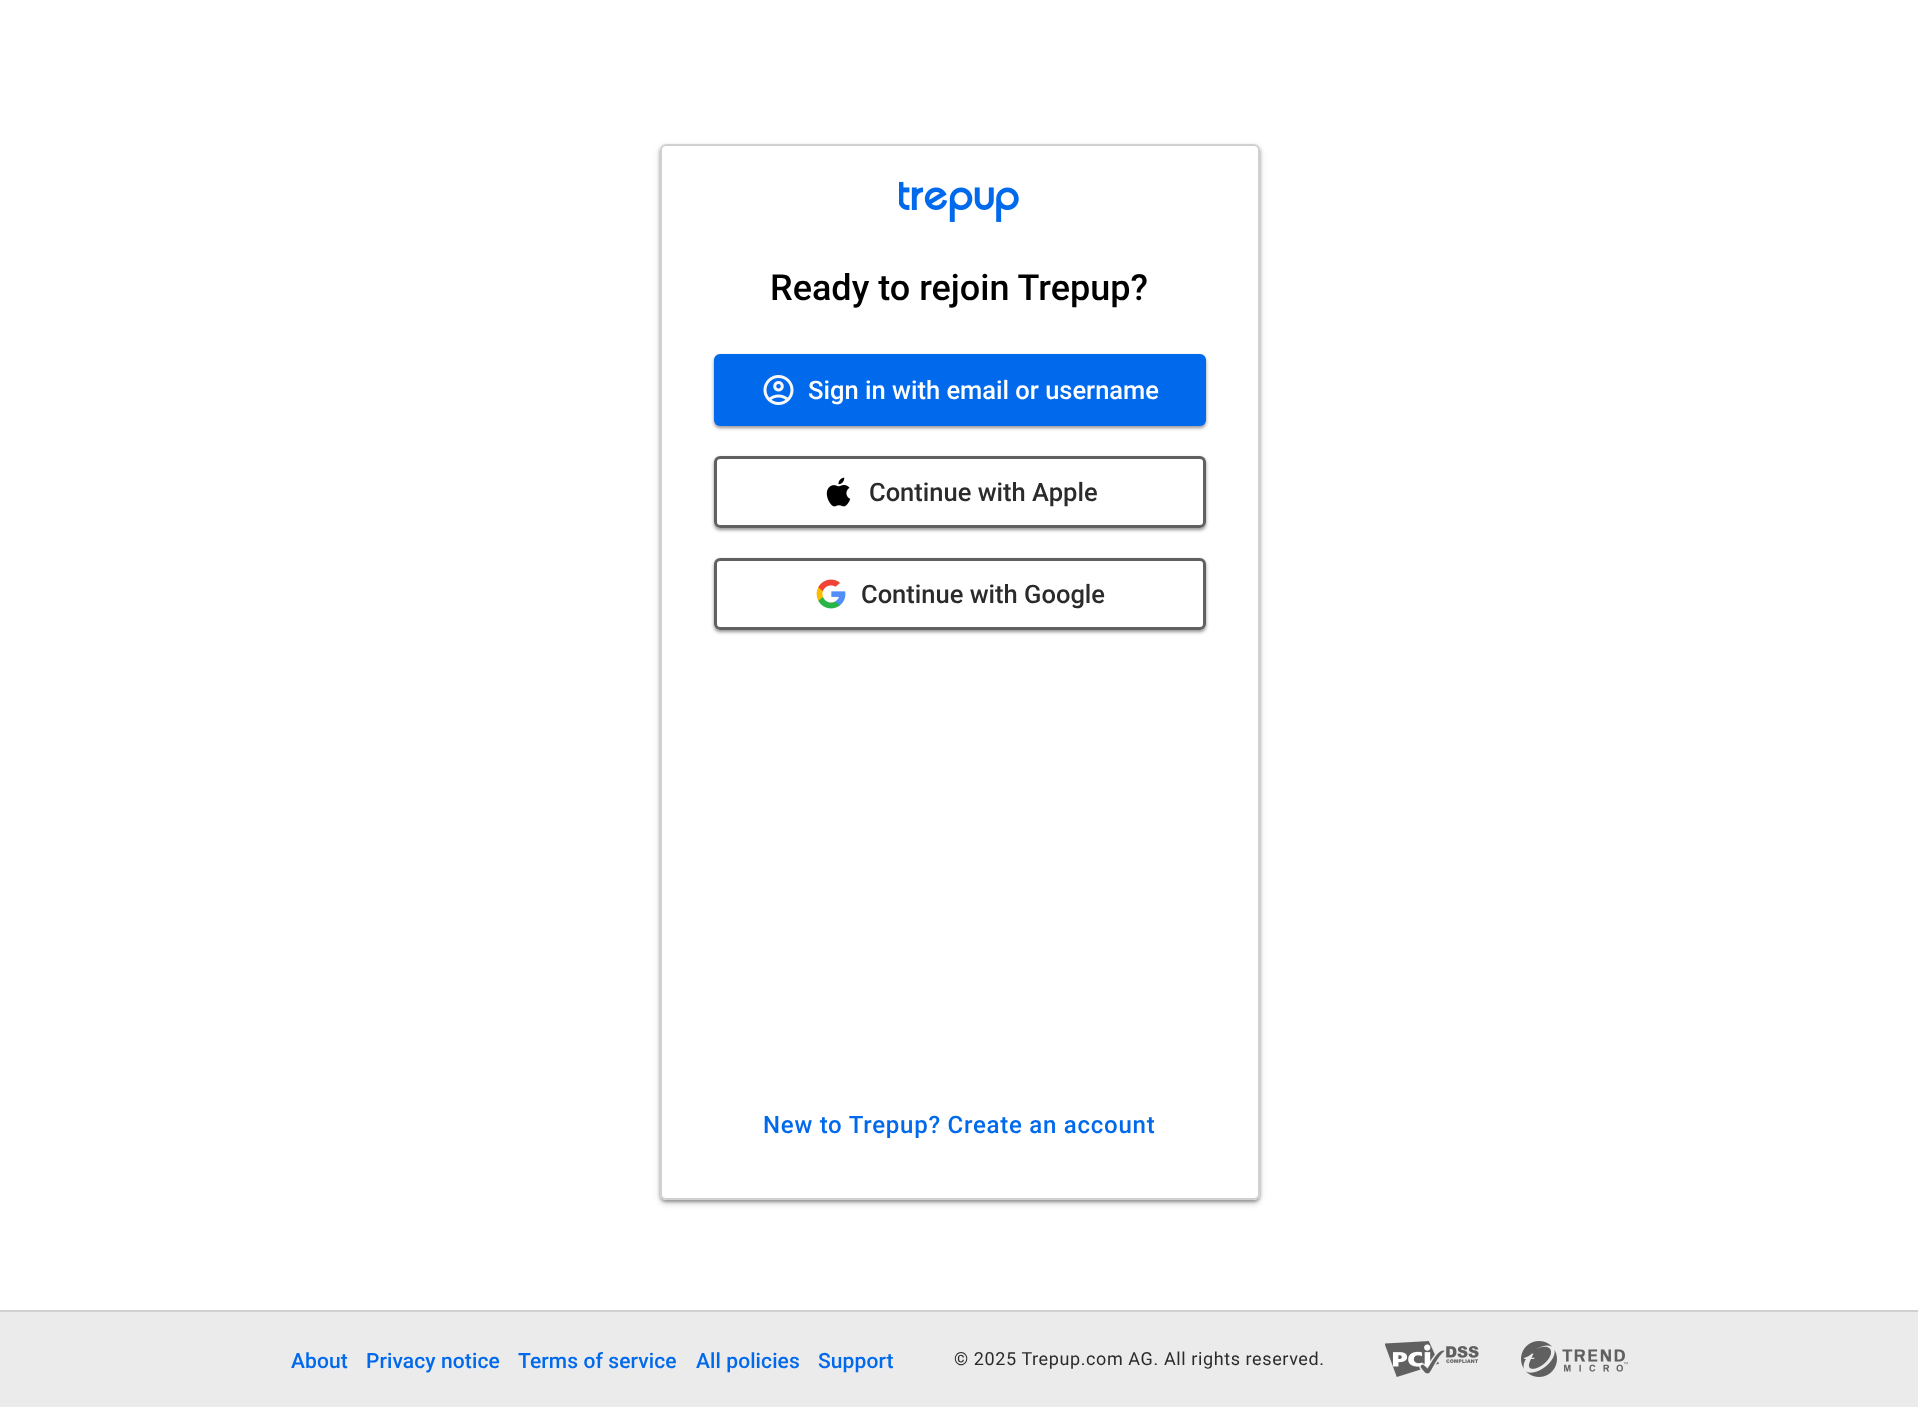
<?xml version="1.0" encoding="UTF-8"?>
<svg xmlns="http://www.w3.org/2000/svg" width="1918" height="1407">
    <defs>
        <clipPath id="clip1"><path d="M 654 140 H 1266 V 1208 H 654 Z M 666 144 H 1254 C 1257.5 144 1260 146.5 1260 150 V 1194 C 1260 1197.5 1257.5 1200 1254 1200 H 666 C 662.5 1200 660 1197.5 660 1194 V 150 C 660 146.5 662.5 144 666 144 Z" clip-rule="evenodd"/></clipPath>
        <filter id="blur1" x="-50%" y="-200%" width="200%" height="500%"><feGaussianBlur stdDeviation="1.5"/></filter>
        <clipPath id="clip2"><path d="M 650 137 H 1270 V 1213 H 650 Z M 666 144 H 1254 C 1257.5 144 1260 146.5 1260 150 V 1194 C 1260 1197.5 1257.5 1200 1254 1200 H 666 C 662.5 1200 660 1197.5 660 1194 V 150 C 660 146.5 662.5 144 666 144 Z" clip-rule="evenodd"/></clipPath>
        <filter id="blur2" x="-50%" y="-200%" width="200%" height="500%"><feGaussianBlur stdDeviation="3"/></filter>
        <filter id="blur3" x="-50%" y="-200%" width="200%" height="500%"><feGaussianBlur stdDeviation="2"/></filter>
        <clipPath id="clip3"><path d="M 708 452 H 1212 V 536 H 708 Z M 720 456 H 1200 C 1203.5 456 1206 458.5 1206 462 V 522 C 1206 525.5 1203.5 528 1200 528 H 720 C 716.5 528 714 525.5 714 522 V 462 C 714 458.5 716.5 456 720 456 Z" clip-rule="evenodd"/></clipPath>
        <clipPath id="clip4"><path d="M 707 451 H 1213 V 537 H 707 Z M 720 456 H 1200 C 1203.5 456 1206 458.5 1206 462 V 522 C 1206 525.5 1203.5 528 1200 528 H 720 C 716.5 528 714 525.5 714 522 V 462 C 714 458.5 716.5 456 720 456 Z" clip-rule="evenodd"/></clipPath>
        <clipPath id="clip5"><path d="M 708 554 H 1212 V 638 H 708 Z M 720 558 H 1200 C 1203.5 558 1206 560.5 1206 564 V 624 C 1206 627.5 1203.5 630 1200 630 H 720 C 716.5 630 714 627.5 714 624 V 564 C 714 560.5 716.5 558 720 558 Z" clip-rule="evenodd"/></clipPath>
        <clipPath id="clip6"><path d="M 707 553 H 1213 V 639 H 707 Z M 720 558 H 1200 C 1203.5 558 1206 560.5 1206 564 V 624 C 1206 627.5 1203.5 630 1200 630 H 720 C 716.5 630 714 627.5 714 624 V 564 C 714 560.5 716.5 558 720 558 Z" clip-rule="evenodd"/></clipPath>
    </defs>
    <rect width="100%" height="100%" fill="#FFFFFF"/>
    <g clip-path="url(#clip1)">
        <rect x="660" y="146" width="600" height="1056" rx="6" fill="#000000" fill-opacity="0.3" filter="url(#blur1)"/>
    </g>
    <g clip-path="url(#clip2)">
        <rect x="660" y="147" width="600" height="1056" rx="6" fill="#000000" fill-opacity="0.2" filter="url(#blur2)"/>
    </g>
    <rect x="661" y="145" width="598" height="1054" rx="5" fill="none" stroke="#D0D0D0" stroke-width="2"/>
    <image x="899" y="182" width="120" height="40" href="img_01.png"/>
    <text x="770" y="300" font-family="Roboto" font-size="36" font-weight="500" fill="#000000">Ready to rejoin Trepup?</text>
    <rect x="714" y="356" width="492" height="72" rx="6" fill="#000000" fill-opacity="0.3" filter="url(#blur1)"/>
    <rect x="714" y="356" width="492" height="72" rx="6" fill="#000000" fill-opacity="0.15" filter="url(#blur3)"/>
    <rect x="714" y="354" width="492" height="72" rx="6" fill="#0069EC"/>
    <image x="763" y="375" width="31" height="30" href="img_02.png"/>
    <text x="808" y="399" font-family="Roboto" font-size="25.5" font-weight="500" fill="#FFFFFF">Sign in with email or username</text>
    <g clip-path="url(#clip3)">
        <rect x="714" y="458" width="492" height="72" rx="6" fill="#000000" fill-opacity="0.3" filter="url(#blur1)"/>
    </g>
    <g clip-path="url(#clip4)">
        <rect x="714" y="458" width="492" height="72" rx="6" fill="#000000" fill-opacity="0.15" filter="url(#blur3)"/>
    </g>
    <rect x="715.5" y="457.5" width="489" height="69" rx="4.5" fill="none" stroke="#606060" stroke-width="3"/>
    <image x="826" y="477" width="25" height="30" href="img_03.png"/>
    <text x="869" y="501" font-family="Roboto" font-size="25.5" font-weight="500" fill="#2B2B2B">Continue with Apple</text>
    <g clip-path="url(#clip5)">
        <rect x="714" y="560" width="492" height="72" rx="6" fill="#000000" fill-opacity="0.3" filter="url(#blur1)"/>
    </g>
    <g clip-path="url(#clip6)">
        <rect x="714" y="560" width="492" height="72" rx="6" fill="#000000" fill-opacity="0.15" filter="url(#blur3)"/>
    </g>
    <rect x="715.5" y="559.5" width="489" height="69" rx="4.5" fill="none" stroke="#606060" stroke-width="3"/>
    <image x="816" y="579" width="30" height="30" href="img_04.png"/>
    <text x="861" y="603" font-family="Roboto" font-size="25.5" font-weight="500" fill="#2B2B2B">Continue with Google</text>
    <text x="763" y="1133" font-family="Roboto" font-size="24" font-weight="500" letter-spacing="0.75" fill="#0069EC">New to Trepup? Create an account</text>
    <rect x="0" y="1312" width="1918" height="95" fill="#EBEBEB"/>
    <rect x="0" y="1310" width="1918" height="2" fill="#D0D0D0"/>
    <text x="291" y="1368" font-family="Roboto" font-size="21" font-weight="500" letter-spacing="0.1" fill="#0069EC">About</text>
    <text x="366" y="1368" font-family="Roboto" font-size="21" font-weight="500" letter-spacing="0.1" fill="#0069EC">Privacy notice</text>
    <text x="518" y="1368" font-family="Roboto" font-size="21" font-weight="500" letter-spacing="0.1" fill="#0069EC">Terms of service</text>
    <text x="696" y="1368" font-family="Roboto" font-size="21" font-weight="500" letter-spacing="0.1" fill="#0069EC">All policies</text>
    <text x="818" y="1368" font-family="Roboto" font-size="21" font-weight="500" letter-spacing="0.1" fill="#0069EC">Support</text>
    <text x="954" y="1365" font-family="Roboto" font-size="18" letter-spacing="0.6" fill="#2B2B2B">© 2025 Trepup.com AG. All rights reserved.</text>
    <image x="1385" y="1341" width="94" height="36" href="img_05.png"/>
    <image x="1521" y="1341" width="107" height="36" href="img_06.png"/>
</svg>
